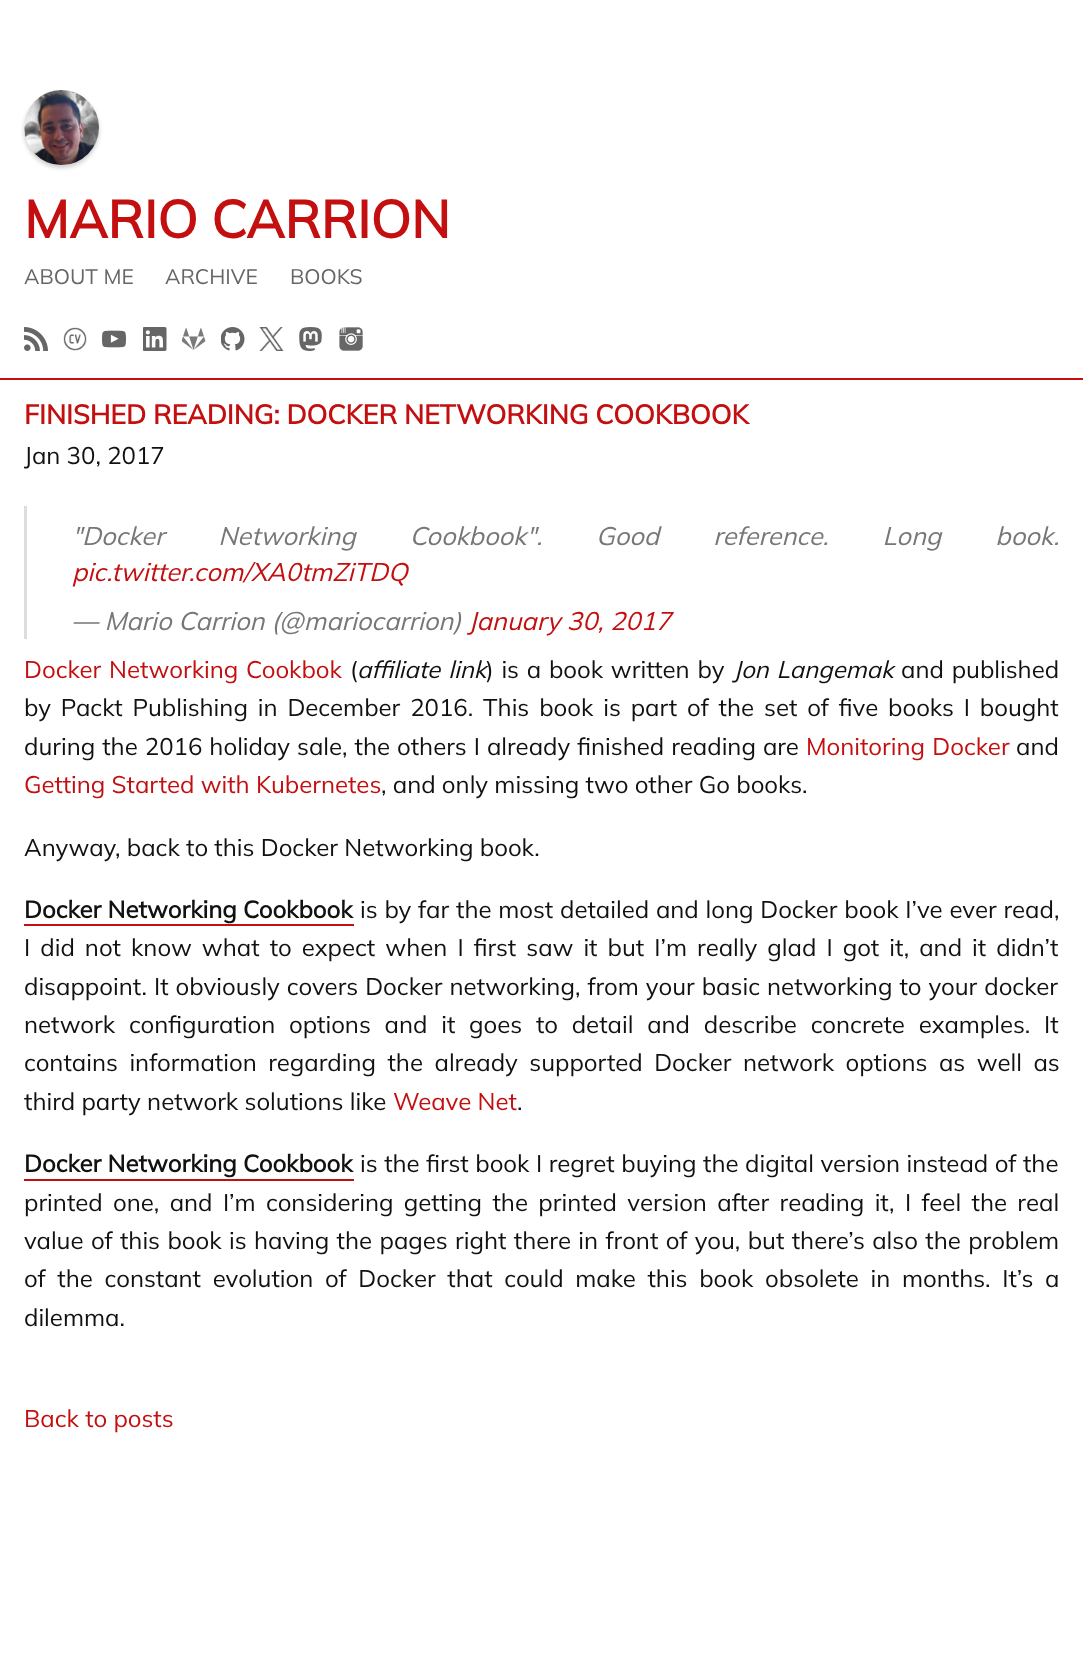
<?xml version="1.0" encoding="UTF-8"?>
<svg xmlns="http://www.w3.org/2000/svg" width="1083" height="1677">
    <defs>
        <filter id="blur1" x="-50%" y="-200%" width="200%" height="500%"><feGaussianBlur stdDeviation="2"/></filter>
    </defs>
    <rect width="100%" height="100%" fill="#FFFFFF"/>
    <rect x="24" y="93" width="75" height="75" rx="37.5" fill="#000000" fill-opacity="0.2" filter="url(#blur1)"/>
    <image x="24" y="90" width="75" height="75" href="img_01.png"/>
    <text x="24" y="238" font-family="Mulish" font-size="52.5" font-weight="700" letter-spacing="-0.1" fill="#C30F0F">MARIO CARRION</text>
    <text x="24" y="284" font-family="Mulish" font-size="21" font-weight="200" fill="#666666">ABOUT ME</text>
    <text x="165" y="284" font-family="Mulish" font-size="21" font-weight="200" fill="#666666">ARCHIVE</text>
    <text x="290" y="284" font-family="Mulish" font-size="21" font-weight="200" fill="#666666">BOOKS</text>
    <rect x="0" y="378" width="1083" height="2" fill="#C30F0F"/>
    <image x="24" y="327" width="24" height="24" href="img_02.png"/>
    <image x="63" y="327" width="24" height="24" href="img_03.png"/>
    <image x="102" y="330" width="24" height="18" href="img_04.png"/>
    <image x="143" y="327" width="24" height="24" href="img_05.png"/>
    <image x="182" y="328" width="24" height="22" href="img_06.png"/>
    <image x="221" y="327" width="24" height="24" href="img_07.png"/>
    <image x="259" y="327" width="25" height="24" href="img_08.png"/>
    <image x="299" y="327" width="23" height="24" href="img_09.png"/>
    <image x="339" y="327" width="24" height="24" href="img_10.png"/>
    <text x="24" y="424" font-family="Mulish" font-size="27" font-weight="700" letter-spacing="-0.1" fill="#C30F0F">FINISHED READING: DOCKER NETWORKING COOKBOOK</text>
    <text x="24" y="464" font-family="Mulish" font-size="24" font-weight="200" fill="#111111">Jan 30, 2017</text>
    <rect x="24" y="506" width="3" height="133" fill="#DDDDDD"/>
    <text x="72" y="545" word-spacing="47.5" font-family="Mulish" font-size="25.5" font-weight="200" font-style="italic" fill="#777777">"Docker Networking Cookbook". Good reference. Long book.</text>
    <text x="72" y="581" font-family="Mulish" font-size="25.5" font-weight="200" font-style="italic" fill="#C30F0F">pic.twitter.com/XA0tmZiTDQ</text>
    <text x="72" y="630" font-family="Mulish" font-size="25.5" font-weight="200" font-style="italic" fill="#777777">— Mario Carrion (@mariocarrion)</text>
    <text x="468" y="630" font-family="Mulish" font-size="25.5" font-weight="200" font-style="italic" fill="#C30F0F">January 30, 2017</text>
    <text x="24" y="678" word-spacing="1.5" font-family="Mulish" font-size="24" font-weight="200" fill="#C30F0F">Docker Networking Cookbok</text>
    <text x="350" y="678" font-family="Mulish" font-size="24" font-weight="200" fill="#111111">(</text>
    <text x="357" y="678" word-spacing="2" font-family="Mulish" font-size="24" font-weight="200" font-style="italic" fill="#111111">affiliate link</text>
    <text x="486" y="678" word-spacing="1.5" font-family="Mulish" font-size="24" font-weight="200" fill="#111111">) is a book written by</text>
    <text x="733" y="678" word-spacing="1.5" font-family="Mulish" font-size="24" font-weight="200" font-style="italic" fill="#111111">Jon Langemak</text>
    <text x="901" y="678" word-spacing="1.5" font-family="Mulish" font-size="24" font-weight="200" fill="#111111">and published</text>
    <text font-family="Mulish" font-size="24" font-weight="200" fill="#111111">
        <tspan x="24" y="716" word-spacing="3.6">by Packt Publishing in December 2016. This book is part of the set of five books I bought</tspan>
        <tspan x="24" y="755" word-spacing="0.75">during the 2016 holiday sale, the others I already finished reading are</tspan>
    </text>
    <text x="806" y="755" word-spacing="1" font-family="Mulish" font-size="24" font-weight="200" fill="#C30F0F">Monitoring Docker</text>
    <text x="1016" y="755" font-family="Mulish" font-size="24" font-weight="200" fill="#111111">and</text>
    <text x="24" y="793" font-family="Mulish" font-size="24" font-weight="200" fill="#C30F0F">Getting Started with Kubernetes</text>
    <text x="381" y="793" font-family="Mulish" font-size="24" font-weight="200" fill="#111111">, and only missing two other Go books.</text>
    <text x="24" y="856" font-family="Mulish" font-size="24" font-weight="200" fill="#111111">Anyway, back to this Docker Networking book.</text>
    <text x="24" y="918" font-family="Mulish" font-size="24" font-weight="700" fill="#111111">Docker Networking Cookbook</text>
    <rect x="24" y="924" width="330" height="2" fill="#C30F0F"/>
    <text x="360" y="918" word-spacing="0.5" font-family="Mulish" font-size="24" font-weight="200" fill="#111111">is by far the most detailed and long Docker book I’ve ever read,</text>
    <text font-family="Mulish" font-size="24" font-weight="200" fill="#111111">
        <tspan x="24" y="956" word-spacing="3.8">I did not know what to expect when I first saw it but I’m really glad I got it, and it didn’t</tspan>
        <tspan x="24" y="995" word-spacing="0.75">disappoint. It obviously covers Docker networking, from your basic networking to your docker</tspan>
        <tspan x="24" y="1033" word-spacing="7.5">network configuration options and it goes to detail and describe concrete examples. It</tspan>
        <tspan x="24" y="1071" word-spacing="5.25">contains information regarding the already supported Docker network options as well as</tspan>
        <tspan x="24" y="1110">third party network solutions like</tspan>
    </text>
    <text x="393" y="1110" font-family="Mulish" font-size="24" font-weight="200" fill="#C30F0F">Weave Net</text>
    <text x="517" y="1110" font-family="Mulish" font-size="24" font-weight="200" fill="#111111">.</text>
    <text x="24" y="1172" font-family="Mulish" font-size="24" font-weight="700" fill="#111111">Docker Networking Cookbook</text>
    <rect x="24" y="1179" width="330" height="2" fill="#C30F0F"/>
    <text x="360" y="1172" word-spacing="0.25" font-family="Mulish" font-size="24" font-weight="200" fill="#111111">is the first book I regret buying the digital version instead of the</text>
    <text font-family="Mulish" font-size="24" font-weight="200" fill="#111111">
        <tspan x="24" y="1211" word-spacing="4.1">printed one, and I’m considering getting the printed version after reading it, I feel the real</tspan>
        <tspan x="24" y="1249" word-spacing="1.1">value of this book is having the pages right there in front of you, but there’s also the problem</tspan>
        <tspan x="24" y="1287" word-spacing="5.4">of the constant evolution of Docker that could make this book obsolete in months. It’s a</tspan>
        <tspan x="24" y="1326">dilemma.</tspan>
    </text>
    <text x="24" y="1427" font-family="Mulish" font-size="24" font-weight="200" fill="#C30F0F">Back to posts</text>
</svg>
